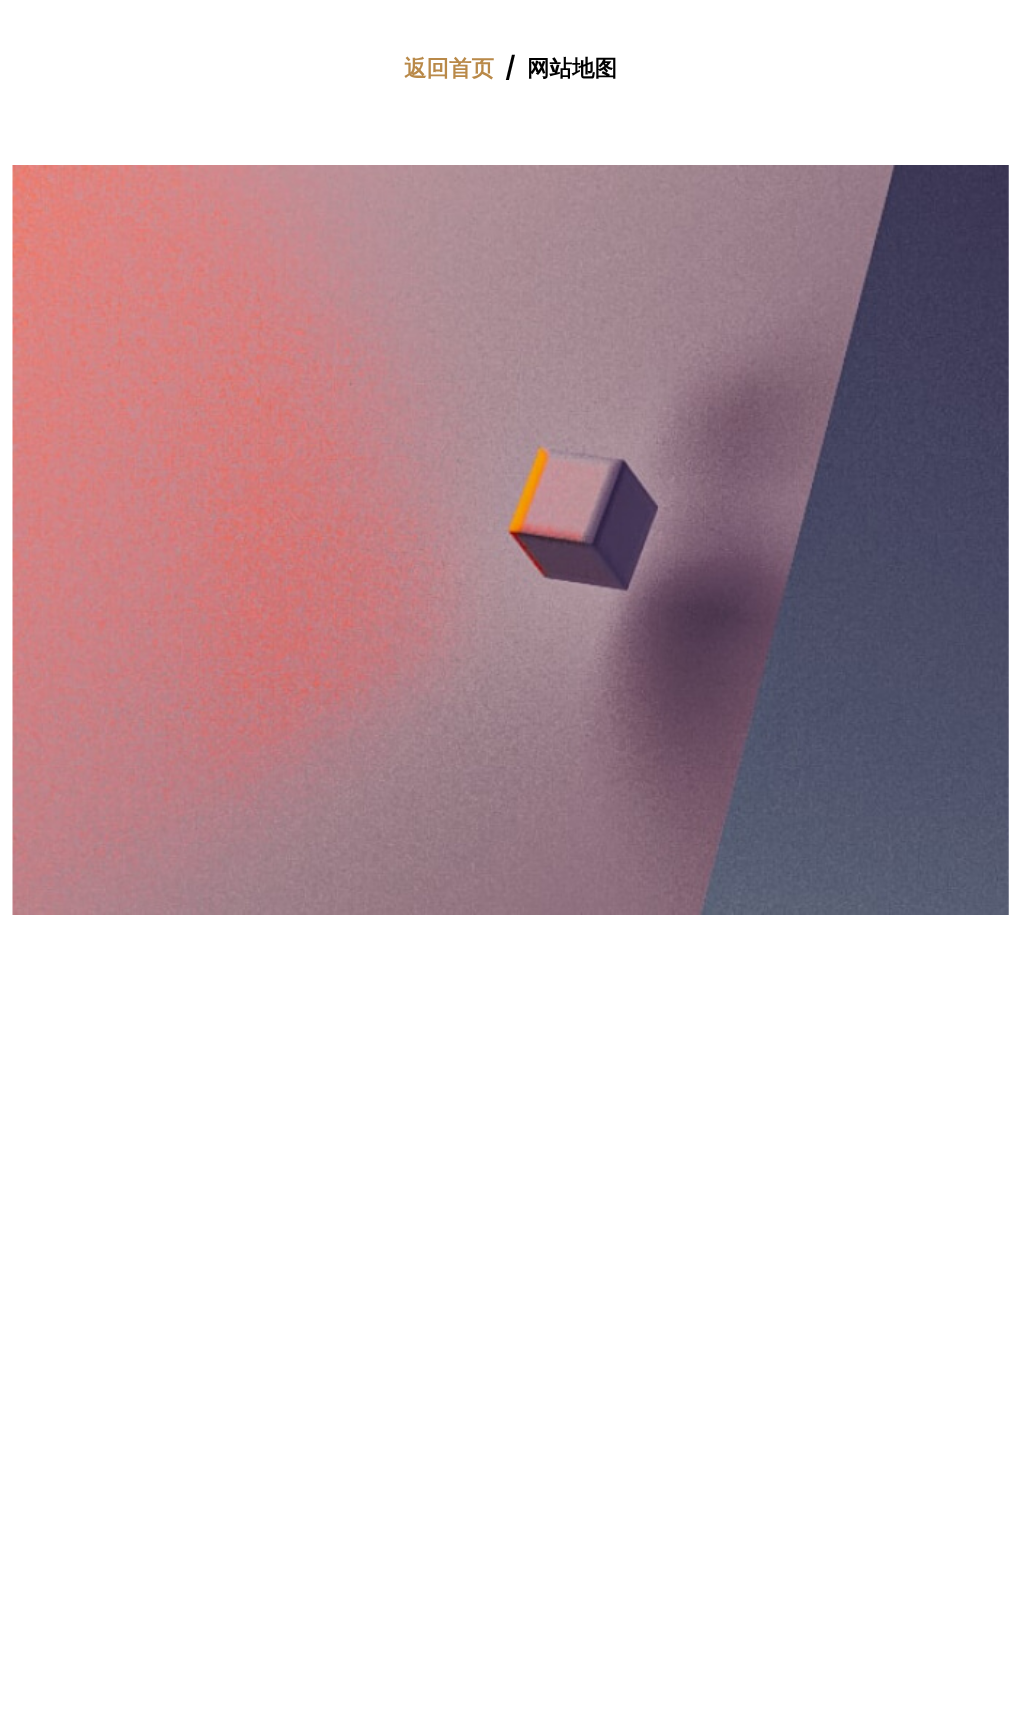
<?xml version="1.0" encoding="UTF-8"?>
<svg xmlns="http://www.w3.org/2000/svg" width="1021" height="1717">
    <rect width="100%" height="100%" fill="#FFFFFF"/>
    <text x="404" y="76" font-family="WenQuanYi Zen Hei" font-size="22.5" font-weight="700" fill="#B98948">返回首页</text>
    <text x="505" y="76" font-family="Poppins" font-size="22.5" font-weight="600" fill="#000000">/</text>
    <text x="527" y="76" font-family="WenQuanYi Zen Hei" font-size="22.5" font-weight="700" fill="#000000">网站地图</text>
    <image x="12" y="165" width="997" height="750" href="img_01.png"/>
</svg>
